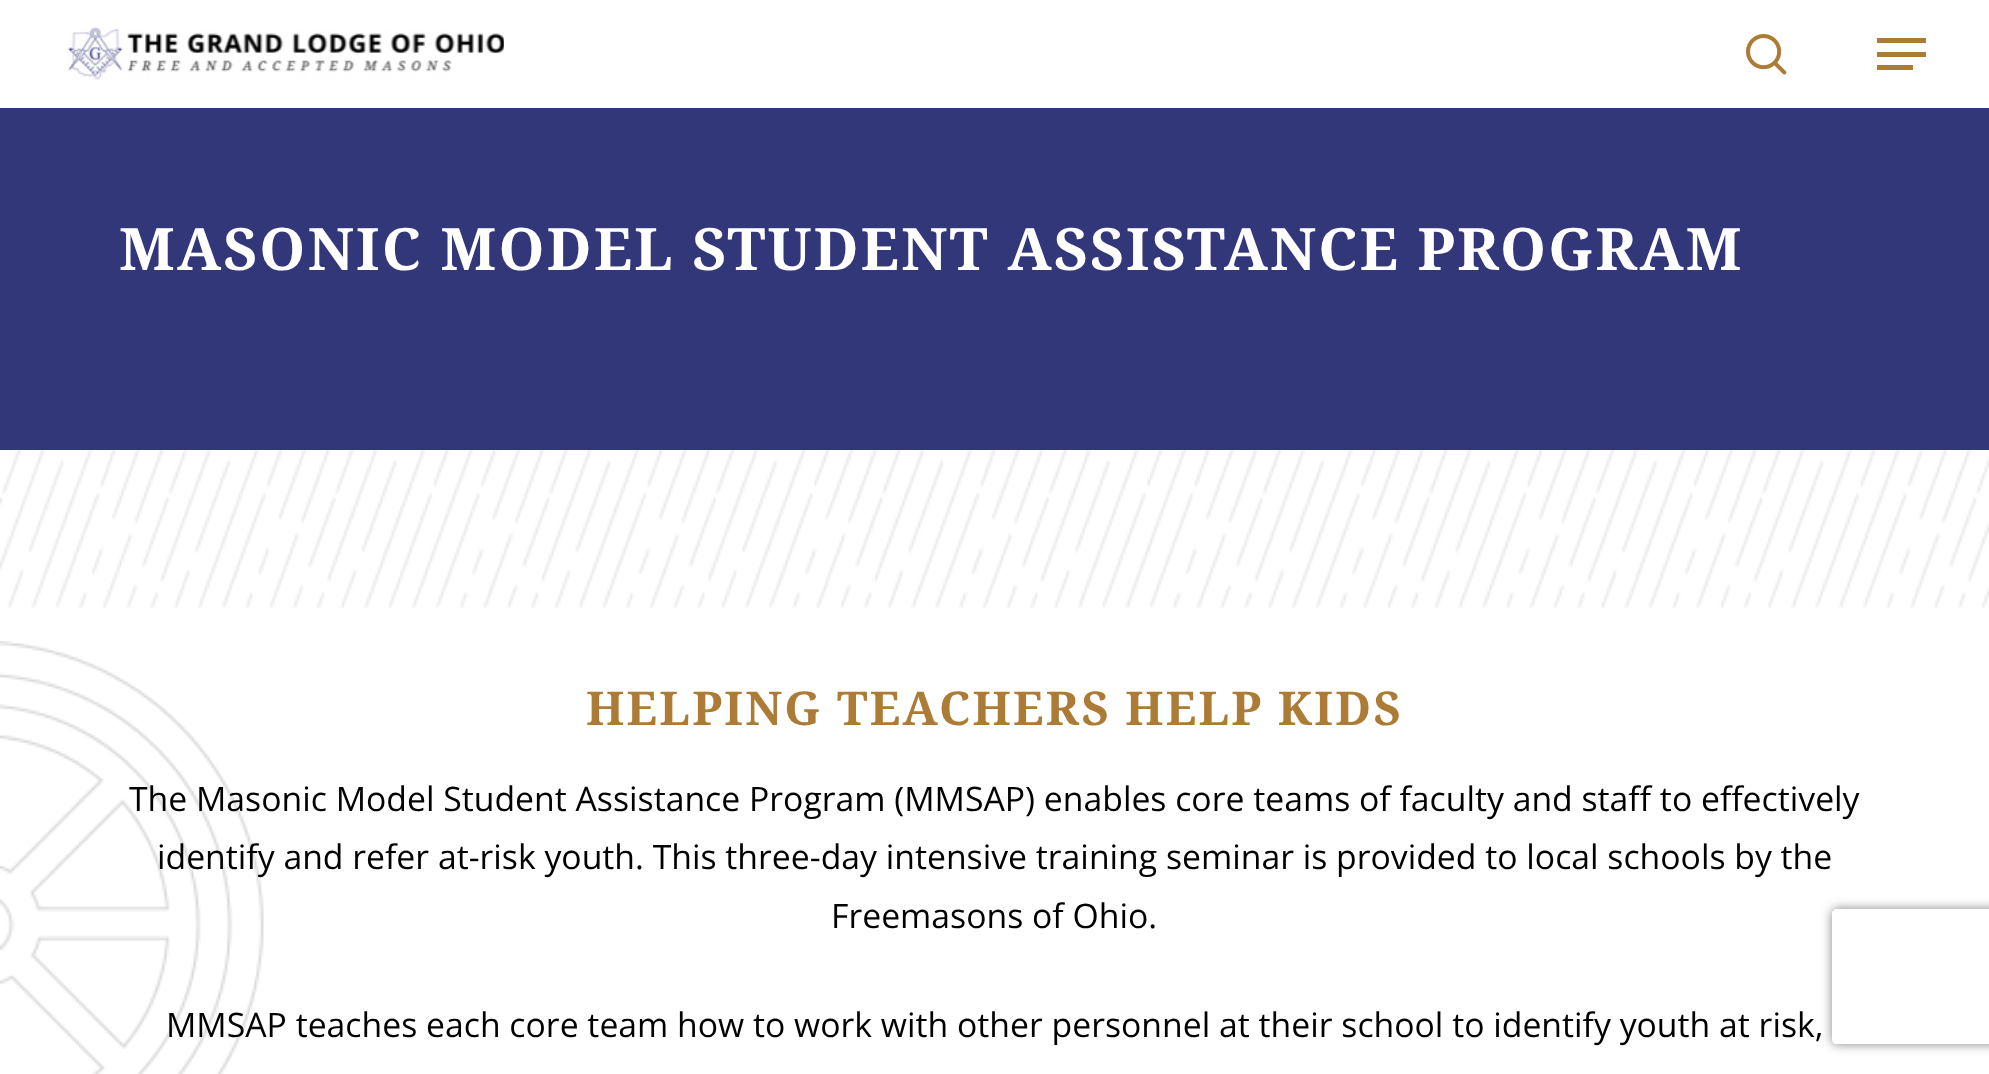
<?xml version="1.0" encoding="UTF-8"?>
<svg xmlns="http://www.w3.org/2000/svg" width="1989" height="1074">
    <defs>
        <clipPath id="clip1"><path d="M 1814 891 H 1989 V 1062 H 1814 Z M 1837 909 H 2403 C 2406 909 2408 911 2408 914 V 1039 C 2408 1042 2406 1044 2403 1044 H 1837 C 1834 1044 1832 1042 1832 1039 V 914 C 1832 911 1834 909 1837 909 Z" clip-rule="evenodd"/></clipPath>
        <filter id="blur1" x="-50%" y="-200%" width="200%" height="500%"><feGaussianBlur stdDeviation="5.5"/></filter>
    </defs>
    <rect width="100%" height="100%" fill="#FFFFFF"/>
    <image x="68" y="27" width="436" height="53" href="img_01.png"/>
    <image x="1746" y="34" width="41" height="41" href="img_02.png"/>
    <rect x="1877" y="38" width="49" height="5" fill="#AC7B35"/>
    <rect x="1877" y="65" width="36" height="5" fill="#AC7B35"/>
    <rect x="1877" y="52" width="49" height="5" fill="#AC7B35"/>
    <rect x="0" y="108" width="1989" height="342" fill="#32377A"/>
    <text x="119" y="270" font-family="Noto Serif" font-size="58.5" font-weight="700" letter-spacing="2.25" fill="#FFFFFF">MASONIC MODEL STUDENT ASSISTANCE PROGRAM</text>
    <image x="0" y="641" width="264" height="433" href="img_03.png"/>
    <image x="0" y="450" width="1989" height="158" href="img_04.png"/>
    <text x="586" y="725" font-family="Noto Serif" font-size="46.75" font-weight="700" letter-spacing="2.25" fill="#AC7B35">HELPING TEACHERS HELP KIDS</text>
    <text x="129" y="811" font-family="Open Sans" font-size="33.75" fill="#000000">The Masonic Model Student Assistance Program (MMSAP) enables core teams of faculty and staff to effectively</text>
    <text x="157" y="869" font-family="Open Sans" font-size="33.75" fill="#000000">identify and refer at-risk youth. This three-day intensive training seminar is provided to local schools by the</text>
    <text x="831" y="928" font-family="Open Sans" font-size="33.75" fill="#000000">Freemasons of Ohio.</text>
    <text x="166" y="1037" font-family="Open Sans" font-size="33.75" fill="#000000">MMSAP teaches each core team how to work with other personnel at their school to identify youth at risk,</text>
    <g clip-path="url(#clip1)">
        <rect x="1832" y="909" width="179" height="135" rx="5" fill="#808080" filter="url(#blur1)"/>
    </g>
</svg>
